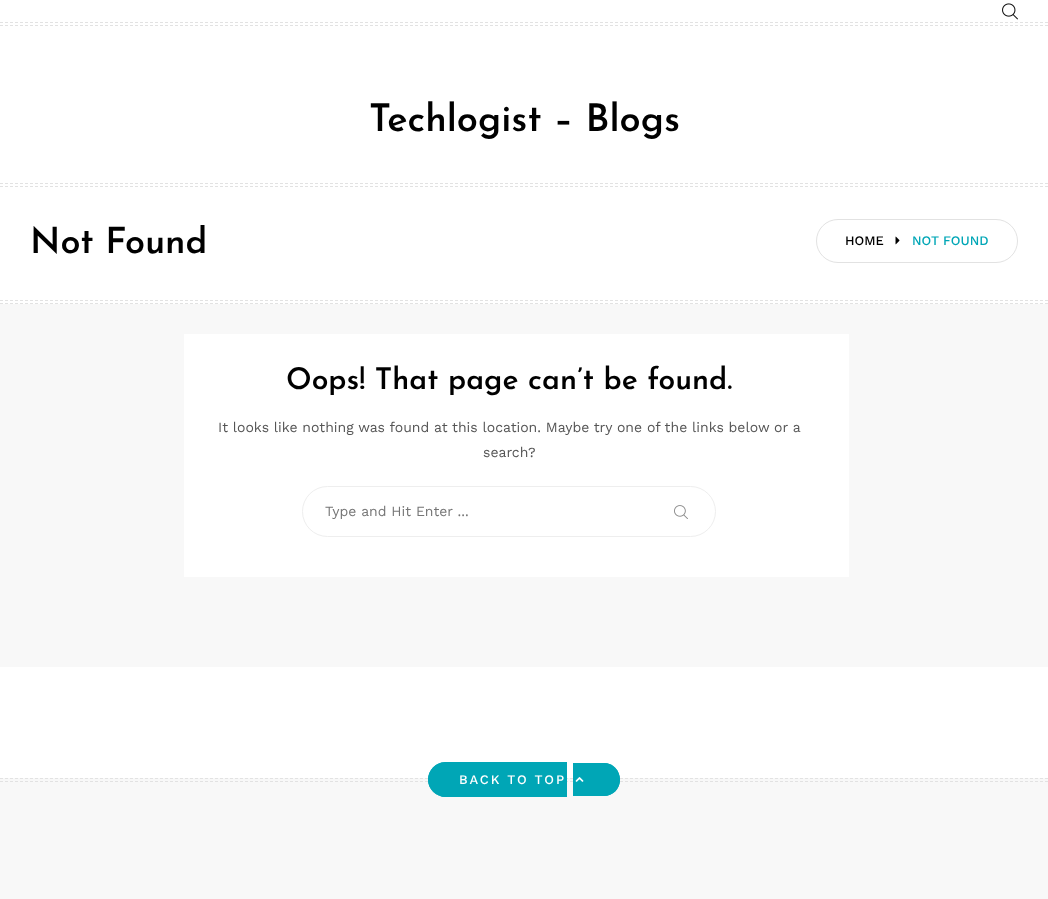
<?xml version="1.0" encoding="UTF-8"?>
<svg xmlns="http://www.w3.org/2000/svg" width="1048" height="899">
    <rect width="100%" height="100%" fill="#F8F8F8"/>
    <rect x="0" y="0" width="1048" height="304" fill="#FFFFFF"/>
    <path d="M 0 25.5 H 1048" fill="none" stroke="#E2E2E2" stroke-dasharray="3 2"/>
    <image x="1002" y="3" width="16" height="17" href="img_01.png"/>
    <path d="M 0 22.5 H 1048" fill="none" stroke="#E2E2E2" stroke-dasharray="3 2"/>
    <path d="M 0 186.5 H 1048" fill="none" stroke="#E2E2E2" stroke-dasharray="3 2"/>
    <text x="369" y="131" font-family="Josefin Sans" font-size="38" font-weight="600" fill="#000000">Techlogist – Blogs</text>
    <path d="M 0 183.5 H 1048" fill="none" stroke="#E2E2E2" stroke-dasharray="3 2"/>
    <path d="M 0 303.5 H 1048" fill="none" stroke="#E2E2E2" stroke-dasharray="3 2"/>
    <text x="30" y="253" font-family="Josefin Sans" font-size="36" font-weight="600" fill="#000000">Not Found</text>
    <rect x="816.5" y="219.5" width="201" height="43" rx="21.5" fill="none" stroke="#E2E2E2"/>
    <text x="845" y="245" font-family="Work Sans" font-size="13" font-weight="500" fill="#000000">HOME</text>
    <image x="895" y="236" width="5" height="9" href="img_02.png"/>
    <text x="912" y="245" font-family="Work Sans" font-size="13" font-weight="500" fill="#00A6B6">NOT FOUND</text>
    <path d="M 0 300.5 H 1048" fill="none" stroke="#E2E2E2" stroke-dasharray="3 2"/>
    <rect x="184" y="334" width="665" height="243" fill="#FFFFFF"/>
    <text x="286" y="389" font-family="Josefin Sans" font-size="30" font-weight="600" fill="#000000">Oops! That page can’t be found.</text>
    <text x="218" y="432" font-family="Work Sans" font-size="14" fill="#555555">It looks like nothing was found at this location. Maybe try one of the links below or a</text>
    <text x="483" y="457" font-family="Work Sans" font-size="14" fill="#555555">search?</text>
    <rect x="302.5" y="486.5" width="413" height="50" rx="25" fill="none" stroke="#EEEEEE"/>
    <text x="325" y="516" font-family="Work Sans" font-size="14" fill="#757575">Type and Hit Enter ...</text>
    <image x="674" y="505" width="14" height="14" href="img_03.png"/>
    <rect x="0" y="667" width="1048" height="111" fill="#FFFFFF"/>
    <path d="M 0 778.5 H 1048" fill="none" stroke="#E2E2E2" stroke-dasharray="3 2"/>
    <path d="M 0 781.5 H 1048" fill="none" stroke="#E2E2E2" stroke-dasharray="3 2"/>
    <path d="M 445.5 762 H 567 V 797 H 445.5 C 436 797 428 789 428 779.5 C 428 770 436 762 445.5 762 Z" fill="#00A6B6"/>
    <path d="M 446 762 H 567 V 797 H 446 C 436 797 428 789 428 780 C 428 770 436 762 446 762 Z M 446 763 H 567 V 796 H 442 C 423 792 426 763 446 763 Z" fill="#00A6B6" fill-rule="evenodd"/>
    <text x="459" y="784" font-family="Work Sans" font-size="13" font-weight="500" letter-spacing="2" fill="#FFFFFF">BACK TO TOP</text>
    <path d="M 573 763 H 603.5 C 612.5 763 620 770.5 620 779.5 C 620 788.5 612.5 796 603.5 796 H 573 Z" fill="#00A6B6"/>
    <path d="M 573 763 H 604 C 613 763 620 770 620 780 C 620 789 613 796 604 796 H 573 Z M 573 764 H 604 C 612 764 619 771 619 780 C 619 788 612 795 604 795 H 573 Z" fill="#00A6B6" fill-rule="evenodd"/>
    <image x="575" y="777" width="9" height="5" href="img_04.png"/>
</svg>
